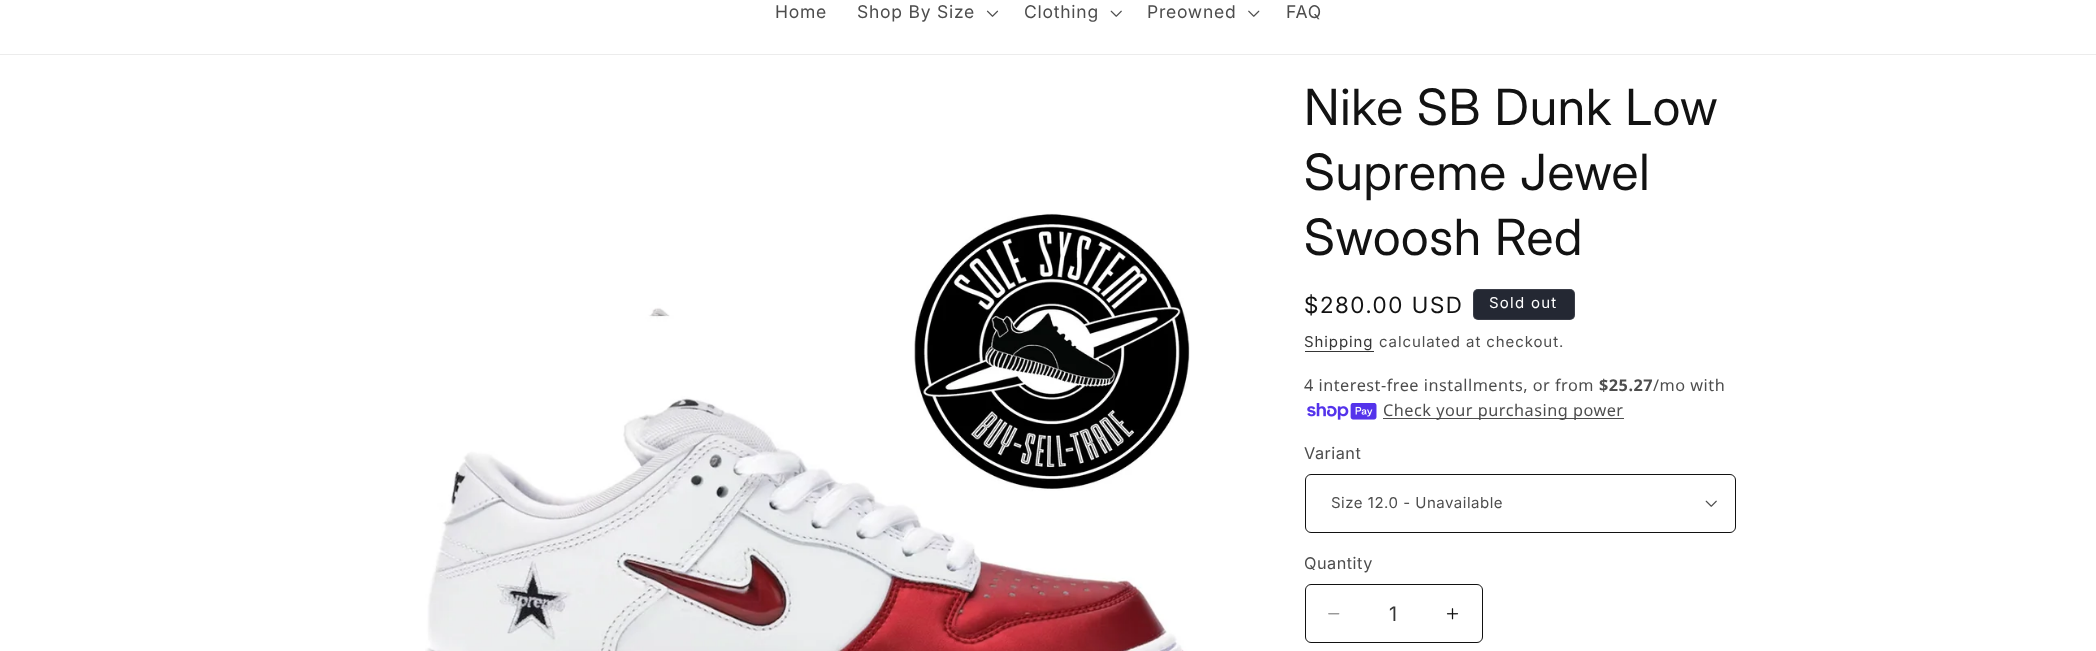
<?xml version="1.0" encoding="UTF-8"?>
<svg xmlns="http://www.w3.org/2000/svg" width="2096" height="651">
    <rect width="100%" height="100%" fill="#FFFFFF"/>
    <rect x="0" y="54" width="2096" height="1" fill="#ECECEC"/>
    <text x="775" y="18" font-family="'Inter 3'" font-size="17.5" letter-spacing="0.75" fill="#4D4D4D">Home</text>
    <text x="857" y="18" font-family="'Inter 3'" font-size="17.5" letter-spacing="0.75" fill="#4D4D4D">Shop By Size</text>
    <image x="986" y="10" width="13" height="7" href="img_01.png"/>
    <text x="1024" y="18" font-family="'Inter 3'" font-size="17.5" letter-spacing="0.75" fill="#4D4D4D">Clothing</text>
    <image x="1110" y="10" width="12" height="7" href="img_02.png"/>
    <text x="1147" y="18" font-family="'Inter 3'" font-size="17.5" letter-spacing="0.75" fill="#4D4D4D">Preowned</text>
    <image x="1248" y="10" width="12" height="7" href="img_03.png"/>
    <text x="1286" y="18" font-family="'Inter 3'" font-size="17.5" letter-spacing="0.75" fill="#4D4D4D">FAQ</text>
    <image x="425" y="213" width="765" height="438" href="img_04.png"/>
    <text font-family="Inter" font-size="50" letter-spacing="0.75" fill="#121212">
        <tspan x="1304" y="125">Nike SB Dunk Low</tspan>
        <tspan x="1304" y="190">Supreme Jewel</tspan>
        <tspan x="1304" y="255">Swoosh Red</tspan>
    </text>
    <text x="1304" y="313" font-family="'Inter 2'" font-size="22.5" letter-spacing="1.6" fill="#121212">$280.00 USD</text>
    <rect x="1473" y="289" width="102" height="31" rx="5" fill="#242833"/>
    <rect x="1473.5" y="289.5" width="101" height="30" rx="4.5" fill="none" stroke="#FFFFFF" stroke-opacity="0.1"/>
    <text x="1489" y="308" font-family="'Inter 3'" font-size="15" letter-spacing="1.25" fill="#FFFFFF">Sold out</text>
    <text x="1304" y="347" font-family="'Inter 3'" font-size="15" letter-spacing="0.9" fill="#363636">Shipping</text>
    <rect x="1305" y="351" width="69" height="1" fill="#363636"/>
    <text x="1379" y="347" font-family="'Inter 3'" font-size="15" letter-spacing="0.9" fill="#4D4D4D">calculated at checkout.</text>
    <text x="1304" y="391" font-family="Noto Sans" font-size="16.25" letter-spacing="0.5" fill="#4D4D4D">4 interest-free installments, or from</text>
    <text x="1599" y="391" font-family="Noto Sans" font-size="16.25" font-weight="700" letter-spacing="0.5" fill="#4D4D4D">$25.27</text>
    <text x="1653" y="391" font-family="Noto Sans" font-size="16.25" letter-spacing="0.5" fill="#4D4D4D">/mo with</text>
    <image x="1307" y="403" width="70" height="17" href="img_05.png"/>
    <rect x="1383" y="418" width="241" height="1" fill="#4D4D4D"/>
    <text x="1383" y="416" font-family="Noto Sans" font-size="16.25" letter-spacing="0.5" fill="#4D4D4D">Check your purchasing power</text>
    <text x="1304" y="459" font-family="'Inter 3'" font-size="16.25" letter-spacing="0.5" fill="#4D4D4D">Variant</text>
    <image x="1705" y="500" width="12" height="7" href="img_02.png"/>
    <rect x="1305.5" y="474.5" width="430" height="58" rx="5.5" fill="none" stroke="#121212"/>
    <text x="1331" y="508" font-family="'Inter 3'" font-size="15" letter-spacing="0.5" fill="#4D4D4D">Size 12.0 - Unavailable</text>
    <text x="1304" y="569" font-family="'Inter 3'" font-size="16.25" letter-spacing="0.5" fill="#4D4D4D">Quantity</text>
    <image x="1328" y="613" width="12" height="2" href="img_06.png"/>
    <image x="1446" y="608" width="13" height="12" href="img_07.png"/>
    <rect x="1305.5" y="584.5" width="177" height="58" rx="5.5" fill="none" stroke="#121212"/>
    <text x="1389" y="621" font-family="'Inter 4'" font-size="20" fill="#363636">1</text>
</svg>
